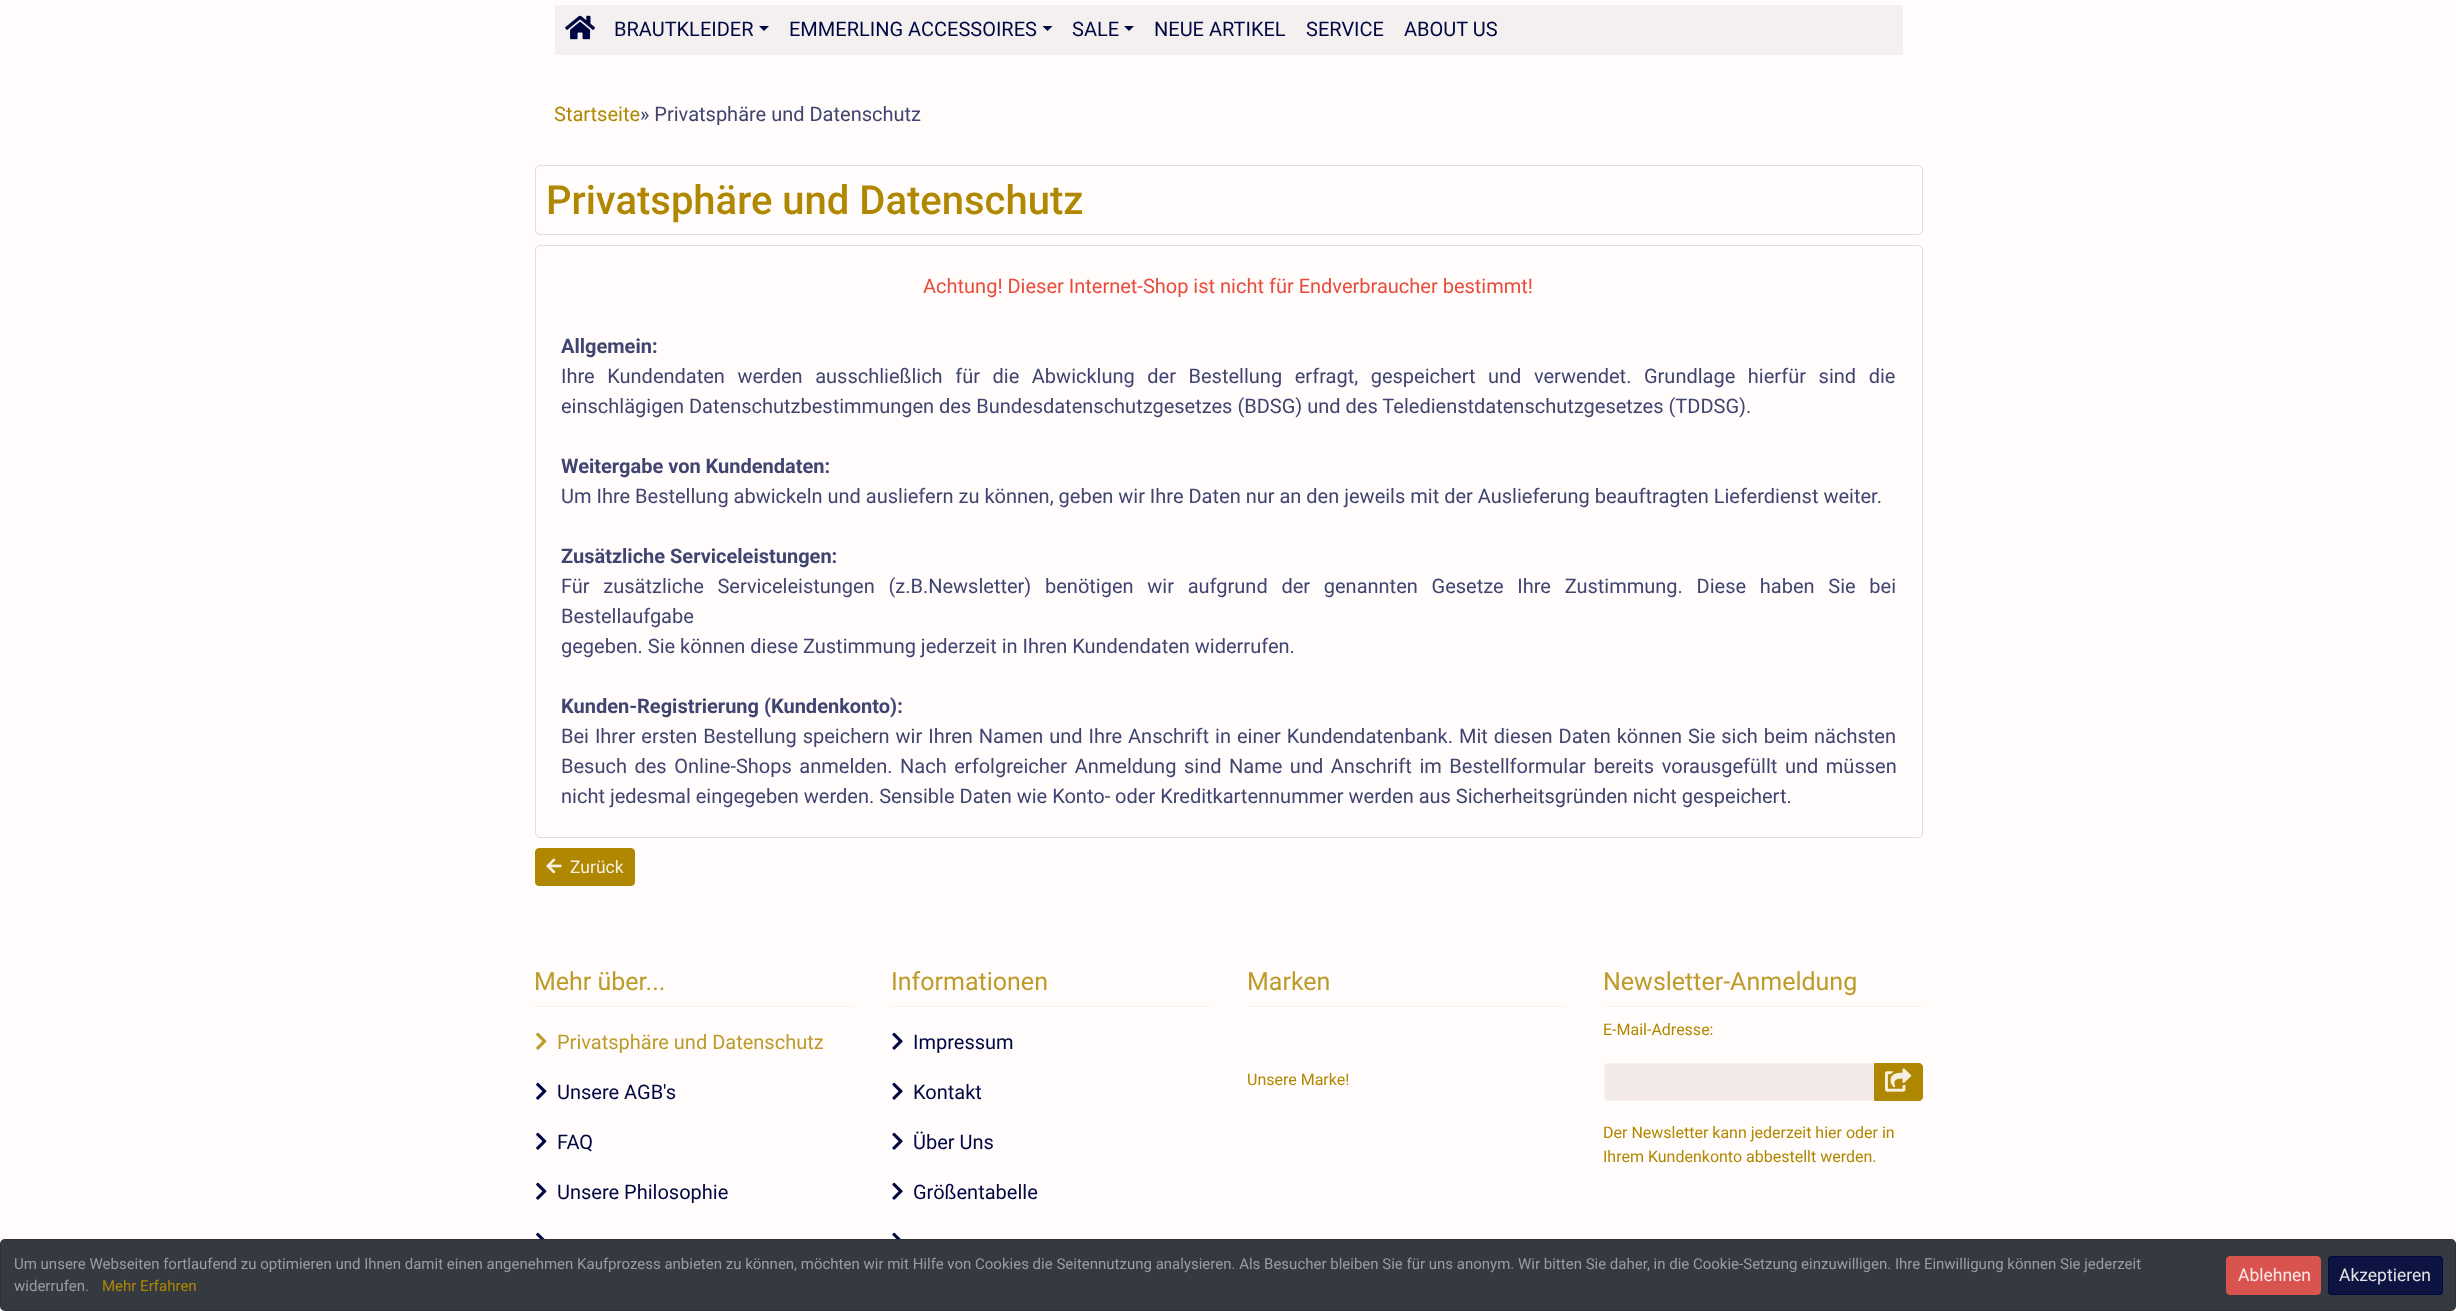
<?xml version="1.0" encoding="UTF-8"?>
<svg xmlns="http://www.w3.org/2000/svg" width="2456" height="1311">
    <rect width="100%" height="100%" fill="#FFFCFB"/>
    <rect x="555" y="5" width="1348" height="50" fill="#F4F0F0"/>
    <image x="565" y="15" width="30" height="25" href="img_01.png"/>
    <text x="614" y="36" font-family="Roboto" font-size="20" fill="#000642">BRAUTKLEIDER</text>
    <path d="M 759 26 H 769 L 764 31 Z" fill="#000642"/>
    <text x="789" y="36" font-family="Roboto" font-size="20" fill="#000642">EMMERLING ACCESSOIRES</text>
    <path d="M 1042.5 26 H 1052.5 L 1047.5 31 Z" fill="#000642"/>
    <text x="1072" y="36" font-family="Roboto" font-size="20" fill="#000642">SALE</text>
    <path d="M 1124 26 H 1134 L 1129 31 Z" fill="#000642"/>
    <text x="1154" y="36" font-family="Roboto" font-size="20" fill="#000642">NEUE ARTIKEL</text>
    <text x="1306" y="36" font-family="Roboto" font-size="20" fill="#000642">SERVICE</text>
    <text x="1404" y="36" font-family="Roboto" font-size="20" fill="#000642">ABOUT US</text>
    <text x="554" y="121" font-family="Roboto" font-size="20" fill="#B08700">Startseite</text>
    <text x="640" y="121" font-family="Roboto" font-size="20" fill="#404470">» Privatsphäre und Datenschutz</text>
    <rect x="535.5" y="165.5" width="1387" height="69" rx="4.5" fill="none" stroke="#DFDDDC"/>
    <text x="546" y="214" font-family="Roboto" font-size="40" font-weight="500" fill="#B08700">Privatsphäre und Datenschutz</text>
    <rect x="535.5" y="245.5" width="1387" height="592" rx="4.5" fill="none" stroke="#DFDDDC"/>
    <text x="923" y="293" font-family="Roboto" font-size="20" fill="#E74C3C">Achtung! Dieser Internet-Shop ist nicht für Endverbraucher bestimmt!</text>
    <text x="561" y="353" font-family="Roboto" font-size="20" font-weight="700" fill="#404470">Allgemein:</text>
    <text font-family="Roboto" font-size="20" fill="#404470">
        <tspan x="561" y="383" word-spacing="7.6">Ihre Kundendaten werden ausschließlich für die Abwicklung der Bestellung erfragt, gespeichert und verwendet. Grundlage hierfür sind die</tspan>
        <tspan x="561" y="413">einschlägigen Datenschutzbestimmungen des Bundesdatenschutzgesetzes (BDSG) und des Teledienstdatenschutzgesetzes (TDDSG).</tspan>
    </text>
    <text x="561" y="473" font-family="Roboto" font-size="20" font-weight="700" fill="#404470">Weitergabe von Kundendaten:</text>
    <text x="561" y="503" font-family="Roboto" font-size="20" fill="#404470">Um Ihre Bestellung abwickeln und ausliefern zu können, geben wir Ihre Daten nur an den jeweils mit der Auslieferung beauftragten Lieferdienst weiter.</text>
    <text x="561" y="563" font-family="Roboto" font-size="20" font-weight="700" fill="#404470">Zusätzliche Serviceleistungen:</text>
    <text font-family="Roboto" font-size="20" fill="#404470">
        <tspan x="561" y="593" word-spacing="8.75">Für zusätzliche Serviceleistungen (z.B.Newsletter) benötigen wir aufgrund der genannten Gesetze Ihre Zustimmung. Diese haben Sie bei</tspan>
        <tspan x="561" y="623">Bestellaufgabe</tspan>
        <tspan x="561" y="653">gegeben. Sie können diese Zustimmung jederzeit in Ihren Kundendaten widerrufen.</tspan>
    </text>
    <text x="561" y="713" font-family="Roboto" font-size="20" font-weight="700" fill="#404470">Kunden-Registrierung (Kundenkonto):</text>
    <text font-family="Roboto" font-size="20" fill="#404470">
        <tspan x="561" y="743" word-spacing="1">Bei Ihrer ersten Bestellung speichern wir Ihren Namen und Ihre Anschrift in einer Kundendatenbank. Mit diesen Daten können Sie sich beim nächsten</tspan>
        <tspan x="561" y="773" word-spacing="2.6">Besuch des Online-Shops anmelden. Nach erfolgreicher Anmeldung sind Name und Anschrift im Bestellformular bereits vorausgefüllt und müssen</tspan>
        <tspan x="561" y="803">nicht jedesmal eingegeben werden. Sensible Daten wie Konto- oder Kreditkartennummer werden aus Sicherheitsgründen nicht gespeichert.</tspan>
    </text>
    <rect x="535.5" y="848.5" width="99" height="37" rx="3.5" fill="#B08700" stroke="#B08700"/>
    <image x="546" y="858" width="16" height="16" href="img_02.png"/>
    <text x="570" y="873" font-family="Roboto" font-size="17.5" fill="#F6EFDF">Zurück</text>
    <rect x="535" y="1006" width="319" height="1" fill="#F9F4E7"/>
    <text x="534" y="990" font-family="Roboto" font-size="25" fill="#BD9B2B">Mehr über...</text>
    <image x="536" y="1032" width="11" height="18" href="img_03.png"/>
    <text x="557" y="1049" font-family="Roboto" font-size="20" fill="#BD9B2B">Privatsphäre und Datenschutz</text>
    <image x="536" y="1082" width="11" height="18" href="img_04.png"/>
    <text x="557" y="1099" font-family="Roboto" font-size="20" fill="#000642">Unsere AGB's</text>
    <image x="536" y="1132" width="11" height="18" href="img_04.png"/>
    <text x="557" y="1149" font-family="Roboto" font-size="20" fill="#000642">FAQ</text>
    <image x="536" y="1182" width="11" height="18" href="img_04.png"/>
    <text x="557" y="1199" font-family="Roboto" font-size="20" fill="#000642">Unsere Philosophie</text>
    <image x="536" y="1232" width="9" height="7" href="img_05.png"/>
    <rect x="891" y="1006" width="319" height="1" fill="#F9F4E7"/>
    <text x="891" y="990" font-family="Roboto" font-size="25" fill="#BD9B2B">Informationen</text>
    <image x="892" y="1032" width="11" height="18" href="img_06.png"/>
    <text x="913" y="1049" font-family="Roboto" font-size="20" fill="#000642">Impressum</text>
    <image x="892" y="1082" width="11" height="18" href="img_06.png"/>
    <text x="913" y="1099" font-family="Roboto" font-size="20" fill="#000642">Kontakt</text>
    <image x="892" y="1132" width="11" height="18" href="img_06.png"/>
    <text x="913" y="1149" font-family="Roboto" font-size="20" fill="#000642">Über Uns</text>
    <image x="892" y="1182" width="11" height="18" href="img_06.png"/>
    <text x="913" y="1199" font-family="Roboto" font-size="20" fill="#000642">Größentabelle</text>
    <image x="892" y="1232" width="9" height="7" href="img_07.png"/>
    <rect x="1248" y="1006" width="318" height="1" fill="#F9F4E7"/>
    <text x="1247" y="990" font-family="Roboto" font-size="25" fill="#BD9B2B">Marken</text>
    <text x="1247" y="1085" font-family="Roboto" font-size="16" fill="#B08700">Unsere Marke!</text>
    <rect x="1604" y="1006" width="319" height="1" fill="#F9F4E7"/>
    <text x="1603" y="990" font-family="Roboto" font-size="25" fill="#BD9B2B">Newsletter-Anmeldung</text>
    <text x="1603" y="1035" font-family="Roboto" font-size="16" fill="#B08700">E-Mail-Adresse:</text>
    <path d="M 1607.5 1064 H 1874 V 1100 H 1607.5 C 1606 1100 1605 1099 1605 1097.5 V 1066.5 C 1605 1065 1606 1064 1607.5 1064 Z" fill="#F3EAE7"/>
    <path d="M 1608 1063.5 H 1874.5 V 1100.5 H 1608 C 1606 1100.5 1604.5 1099 1604.5 1097 V 1067 C 1604.5 1065 1606 1063.5 1608 1063.5 Z" fill="none" stroke="#F9F4E7"/>
    <path d="M 1874.5 1063.5 H 1919 C 1921 1063.5 1922.5 1065 1922.5 1067 V 1097 C 1922.5 1099 1921 1100.5 1919 1100.5 H 1874.5 Z" fill="#B08700" stroke="#B08700"/>
    <image x="1885" y="1068" width="27" height="24" href="img_08.png"/>
    <text font-family="Roboto" font-size="16" fill="#B08700">
        <tspan x="1603" y="1138">Der Newsletter kann jederzeit hier oder in</tspan>
        <tspan x="1603" y="1162">Ihrem Kundenkonto abbestellt werden.</tspan>
    </text>
    <rect x="0" y="1239" width="2456" height="72" rx="5" fill="#343A40"/>
    <rect x="0.5" y="1239.5" width="2455" height="71" rx="4.5" fill="none" stroke="#000000" stroke-opacity="0.12"/>
    <text font-family="Roboto" font-size="15" fill="#9A9DA0">
        <tspan x="14" y="1269">Um unsere Webseiten fortlaufend zu optimieren und Ihnen damit einen angenehmen Kaufprozess anbieten zu können, möchten wir mit Hilfe von Cookies die Seitennutzung analysieren. Als Besucher bleiben Sie für uns anonym. Wir bitten Sie daher, in die Cookie-Setzung einzuwilligen. Ihre Einwilligung können Sie jederzeit</tspan>
        <tspan x="14" y="1291">widerrufen.</tspan>
    </text>
    <text x="102" y="1291" font-family="Roboto" font-size="15" fill="#B08700">Mehr Erfahren</text>
    <rect x="2226.5" y="1256.5" width="94" height="38" rx="3.5" fill="#D9534F" stroke="#D9534F"/>
    <text x="2238" y="1281" font-family="Roboto" font-size="17.5" fill="#FBE9E7">Ablehnen</text>
    <rect x="2328" y="1256" width="115" height="39" rx="4" fill="#0E1441"/>
    <rect x="2328.5" y="1256.5" width="114" height="38" rx="3.5" fill="none" stroke="#000642" stroke-opacity="0.74"/>
    <text x="2339" y="1281" font-family="Roboto" font-size="17.5" fill="#E4E2E6">Akzeptieren</text>
</svg>
